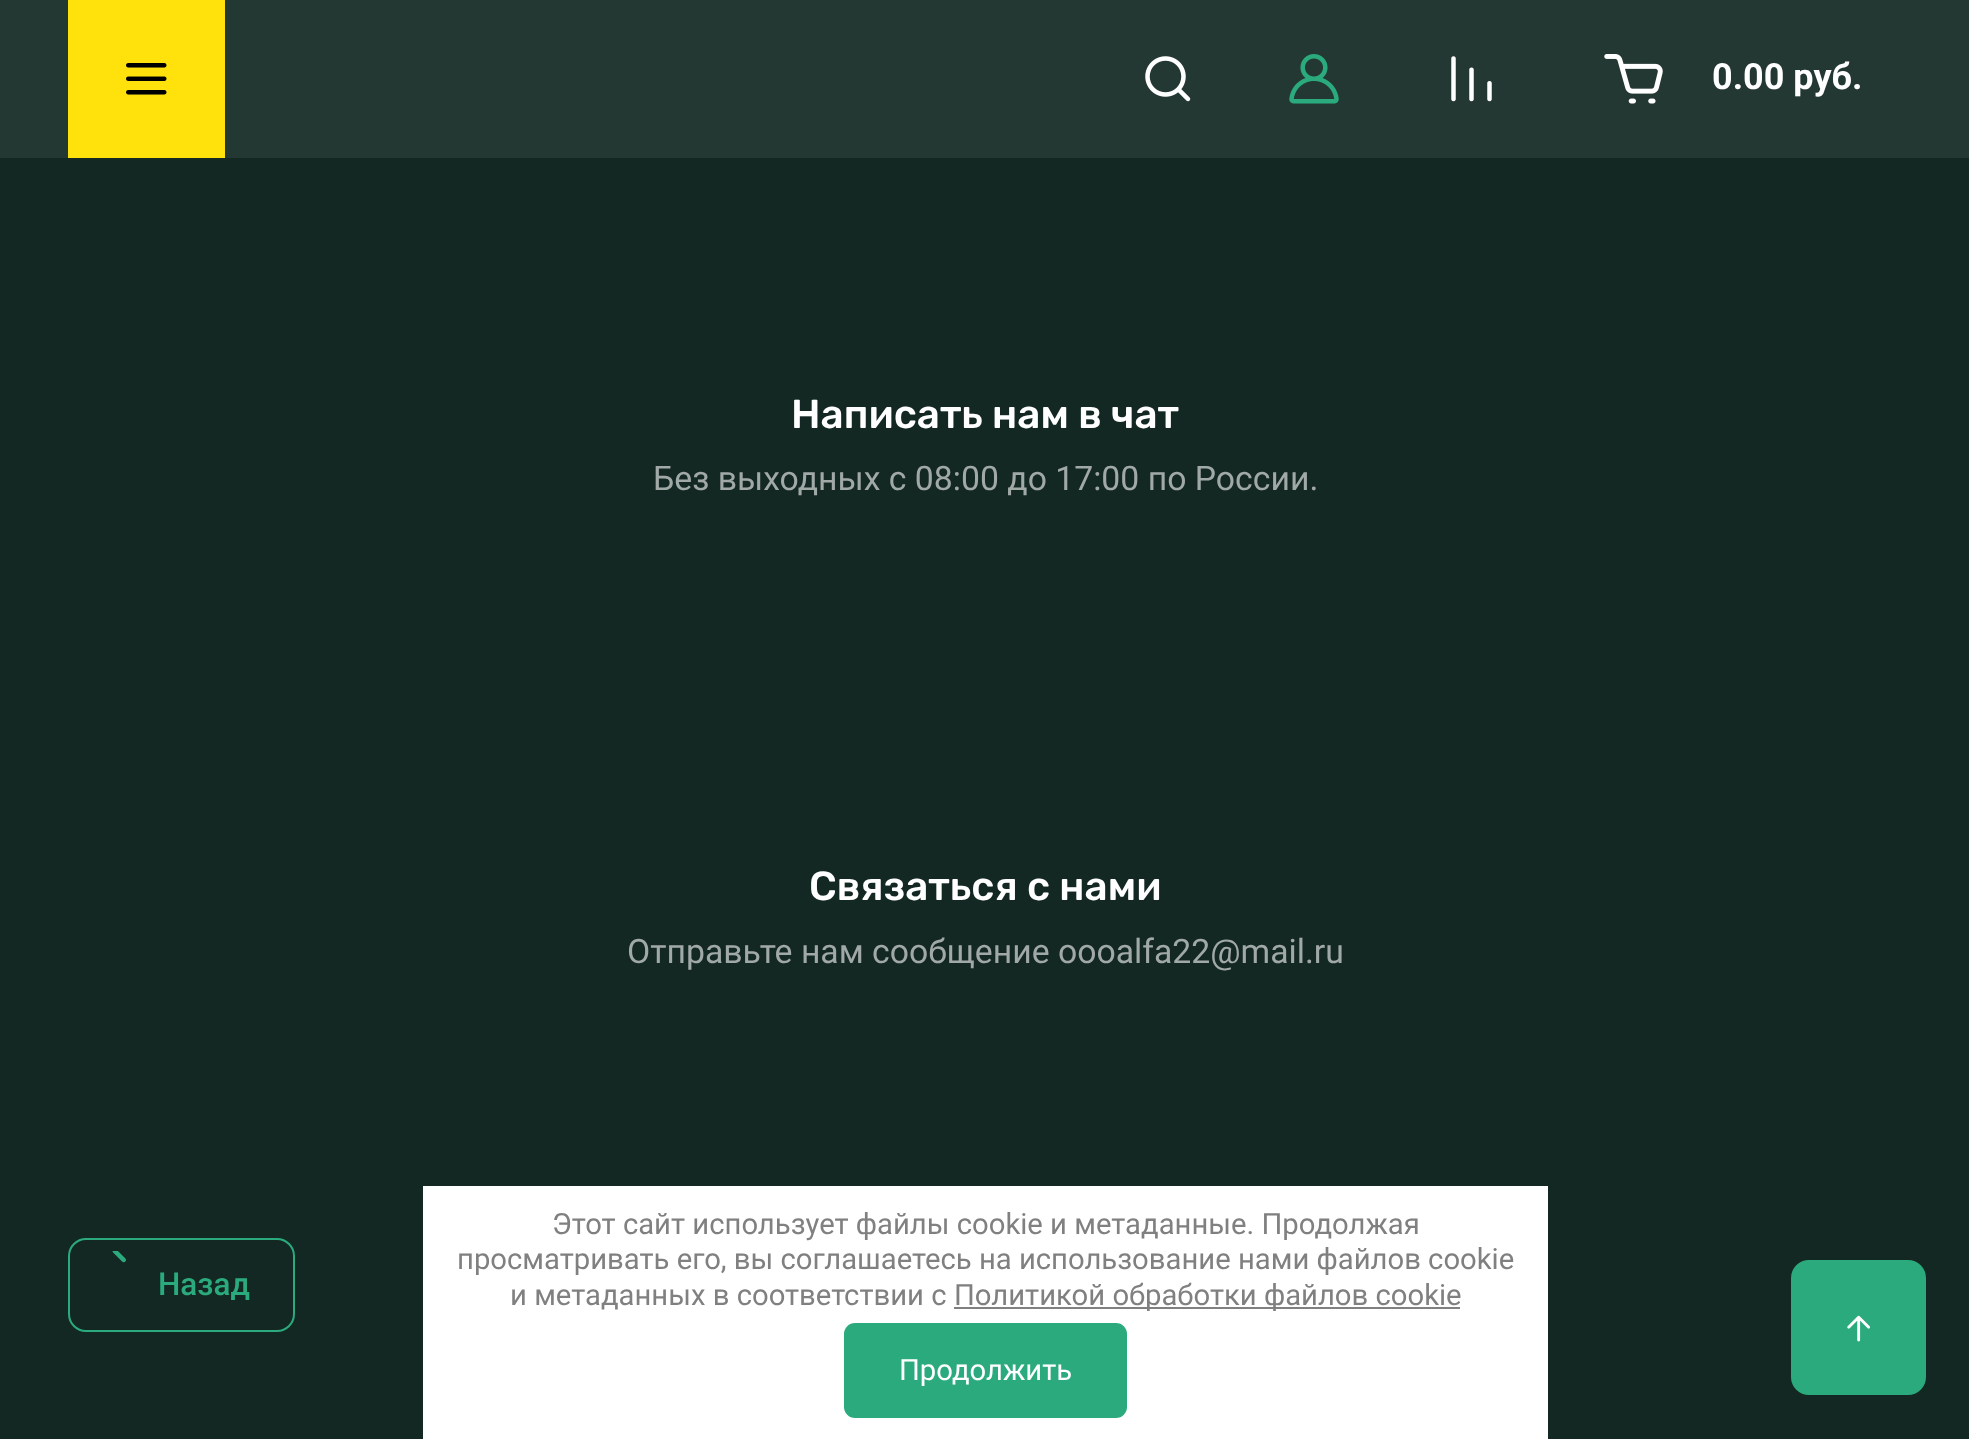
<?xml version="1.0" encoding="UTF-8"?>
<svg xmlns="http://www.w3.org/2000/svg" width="1969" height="1439">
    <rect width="100%" height="100%" fill="#132823"/>
    <rect x="0" y="0" width="1969" height="158" fill="#233733"/>
    <rect x="68" y="0" width="157" height="158" fill="#FFE10B"/>
    <image x="126" y="63" width="41" height="32" href="img_01.png"/>
    <image x="1145" y="56" width="46" height="46" href="img_02.png"/>
    <image x="1289" y="54" width="50" height="50" href="img_03.png"/>
    <image x="1451" y="56" width="41" height="46" href="img_04.png"/>
    <image x="1604" y="54" width="59" height="50" href="img_05.png"/>
    <text x="1712" y="89" font-family="Roboto" font-size="36" font-weight="700" fill="#FFFFFF">0.00 руб.</text>
    <text x="791" y="428" font-family="Rubik" font-size="40.5" font-weight="500" fill="#FFFFFF">Написать нам в чат</text>
    <text x="653" y="490" font-family="Roboto" font-size="33.75" fill="#A1A9A7">Без выходных c 08:00 до 17:00 по России.</text>
    <text x="809" y="900" font-family="Rubik" font-size="40.5" font-weight="500" fill="#FFFFFF">Связаться с нами</text>
    <text x="627" y="963" font-family="Roboto" font-size="33.75" fill="#A1A9A7">Отправьте нам сообщение oooalfa22@mail.ru</text>
    <rect x="69" y="1239" width="225" height="92" rx="17" fill="none" stroke="#2BAB7D" stroke-width="2"/>
    <image x="112" y="1251" width="14" height="12" href="img_06.png"/>
    <text x="158" y="1295" font-family="Roboto" font-size="31.5" font-weight="500" fill="#2BAB7D">Назад</text>
    <rect x="423" y="1186" width="1125" height="253" fill="#FFFFFF"/>
    <text x="552" y="1234" font-family="Roboto" font-size="29.25" fill="#808080">Этот сайт использует файлы cookie и метаданные. Продолжая</text>
    <text x="457" y="1269" font-family="Roboto" font-size="29.25" fill="#808080">просматривать его, вы соглашаетесь на использование нами файлов cookie</text>
    <text x="510" y="1305" font-family="Roboto" font-size="29.25" fill="#808080">и метаданных в соответствии с</text>
    <rect x="954" y="1307" width="506" height="2" fill="#808080"/>
    <text x="954" y="1305" font-family="Roboto" font-size="29.25" fill="#808080">Политикой обработки файлов cookie</text>
    <rect x="844" y="1323" width="283" height="95" rx="11" fill="#2BAB7D"/>
    <text x="899" y="1380" font-family="Roboto" font-size="29.25" fill="#FFFFFF">Продолжить</text>
    <rect x="1791" y="1260" width="135" height="135" rx="18" fill="#2BAB7D"/>
    <image x="1847" y="1315" width="23" height="27" href="img_07.png"/>
</svg>
